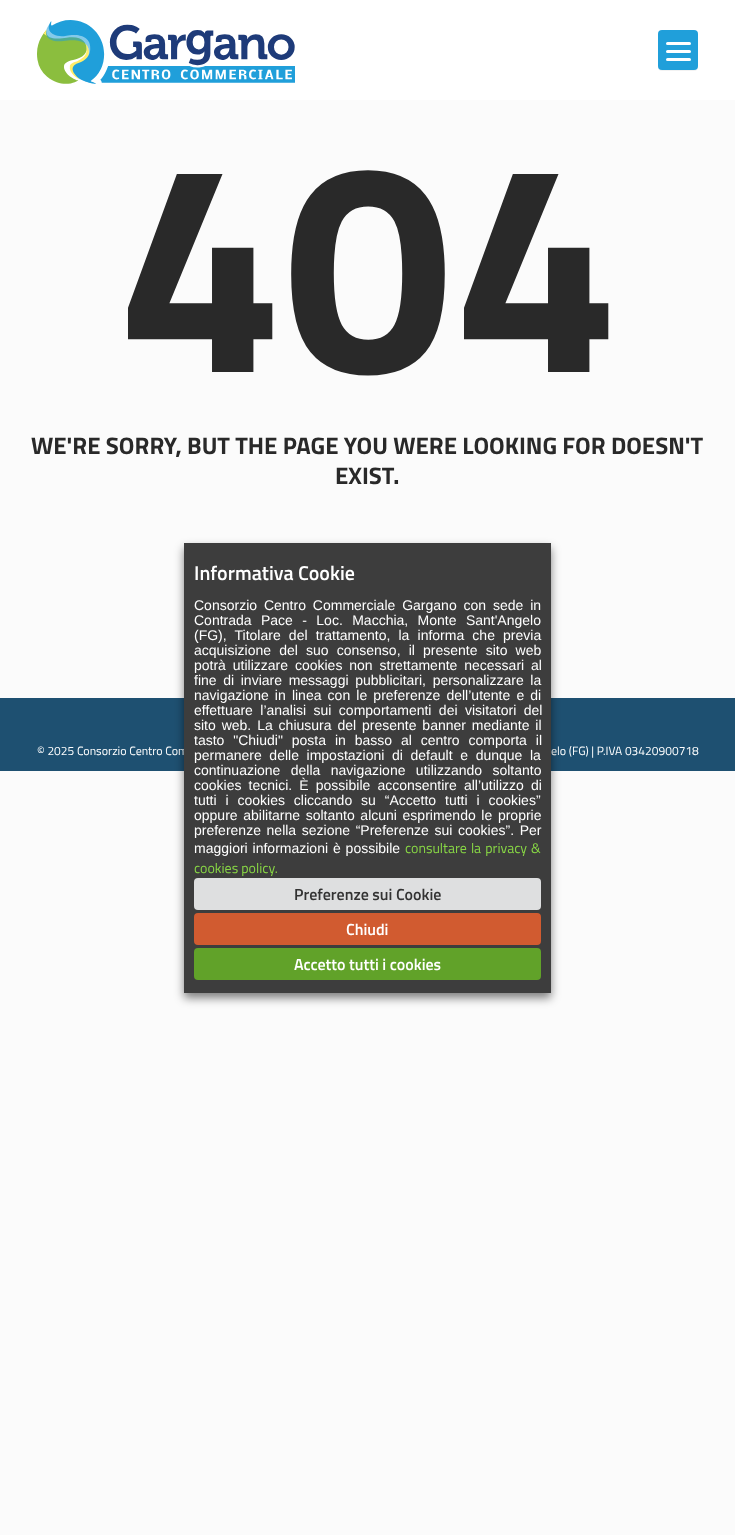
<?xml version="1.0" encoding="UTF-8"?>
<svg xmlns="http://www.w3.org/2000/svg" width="735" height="1535">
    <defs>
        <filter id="blur1" x="-50%" y="-200%" width="200%" height="500%"><feGaussianBlur stdDeviation="0.5"/></filter>
        <filter id="blur2" x="-50%" y="-200%" width="200%" height="500%"><feGaussianBlur stdDeviation="5"/></filter>
    </defs>
    <rect width="100%" height="100%" fill="#FBFBFB"/>
    <rect x="0" y="0" width="735" height="100" fill="#FFFFFF"/>
    <image x="37" y="20" width="258" height="64" href="img_01.png"/>
    <rect x="658" y="31" width="40" height="40" rx="4" fill="#000000" fill-opacity="0.05" filter="url(#blur1)"/>
    <rect x="658" y="30" width="40" height="40" rx="4" fill="#209FDA"/>
    <rect x="666" y="50" width="25" height="3" rx="1.5" fill="#FFFFFF"/>
    <rect x="666" y="42" width="25" height="3" rx="1.5" fill="#FFFFFF"/>
    <rect x="666" y="58" width="25" height="3" rx="1.5" fill="#FFFFFF"/>
    <text x="116" y="372" font-family="Titillium Web" font-size="300" font-weight="700" fill="#292929">404</text>
    <text x="31" y="454" font-family="Titillium Web" font-size="24" font-weight="700" fill="#292929">WE'RE SORRY, BUT THE PAGE YOU WERE LOOKING FOR DOESN'T</text>
    <text x="335" y="484" font-family="Titillium Web" font-size="24" font-weight="700" fill="#292929">EXIST.</text>
    <rect x="0" y="698" width="735" height="73" fill="#1E5071"/>
    <text x="37" y="755" font-family="Titillium Web" font-size="12" fill="#FFFFFF">© 2025 Consorzio Centro Com</text>
    <text x="551" y="755" font-family="Titillium Web" font-size="12" fill="#FFFFFF">elo (FG) | P.IVA 03420900718</text>
    <rect x="184" y="548" width="367" height="450" fill="#000000" fill-opacity="0.5" filter="url(#blur2)"/>
    <rect x="184" y="543" width="367" height="450" fill="#3D3D3D"/>
    <text x="194" y="580" font-family="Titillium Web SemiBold" font-size="20" font-weight="600" fill="#FFFFFF">Informativa Cookie</text>
    <text font-family="Liberation Sans" font-size="14" fill="#FFFFFF">
        <tspan x="194" y="610" word-spacing="3">Consorzio Centro Commerciale Gargano con sede in</tspan>
        <tspan x="194" y="625" word-spacing="5.5">Contrada Pace - Loc. Macchia, Monte Sant'Angelo</tspan>
        <tspan x="194" y="640" word-spacing="4.25">(FG), Titolare del trattamento, la informa che previa</tspan>
        <tspan x="194" y="655" word-spacing="4.25">acquisizione del suo consenso, il presente sito web</tspan>
        <tspan x="194" y="670" word-spacing="3">potrà utilizzare cookies non strettamente necessari al</tspan>
        <tspan x="194" y="685" word-spacing="2.75">fine di inviare messaggi pubblicitari, personalizzare la</tspan>
        <tspan x="194" y="700" word-spacing="2.25">navigazione in linea con le preferenze dell’utente e di</tspan>
        <tspan x="194" y="715" word-spacing="3.5">effettuare l’analisi sui comportamenti dei visitatori del</tspan>
        <tspan x="194" y="730" word-spacing="2">sito web. La chiusura del presente banner mediante il</tspan>
        <tspan x="194" y="745" word-spacing="5">tasto "Chiudi" posta in basso al centro comporta il</tspan>
        <tspan x="194" y="760" word-spacing="3.75">permanere delle impostazioni di default e dunque la</tspan>
        <tspan x="194" y="775" word-spacing="6.5">continuazione della navigazione utilizzando soltanto</tspan>
        <tspan x="194" y="790" word-spacing="3.25">cookies tecnici. È possibile acconsentire all’utilizzo di</tspan>
        <tspan x="194" y="805" word-spacing="5">tutti i cookies cliccando su “Accetto tutti i cookies”</tspan>
        <tspan x="194" y="820" word-spacing="1.75">oppure abilitarne soltanto alcuni esprimendo le proprie</tspan>
        <tspan x="194" y="835" word-spacing="1.75">preferenze nella sezione “Preferenze sui cookies”. Per</tspan>
        <tspan x="194" y="853" word-spacing="1">maggiori informazioni è possibile</tspan>
    </text>
    <text x="405" y="853" word-spacing="1" font-family="Titillium Web" font-size="14" fill="#88D745">consultare la privacy &amp;</text>
    <text x="194" y="873" font-family="Titillium Web" font-size="14" fill="#88D745">cookies policy.</text>
    <rect x="194" y="878" width="347" height="32" rx="4" fill="#DEDFE0"/>
    <text x="294" y="900" font-family="Titillium Web SemiBold" font-size="16" font-weight="600" fill="#333333">Preferenze sui Cookie</text>
    <rect x="194" y="913" width="347" height="32" rx="4" fill="#D15B30"/>
    <text x="346" y="935" font-family="Titillium Web SemiBold" font-size="16" font-weight="600" fill="#FFFFFF">Chiudi</text>
    <rect x="194" y="948" width="347" height="32" rx="4" fill="#61A229"/>
    <text x="294" y="970" font-family="Titillium Web SemiBold" font-size="16" font-weight="600" fill="#FFFFFF">Accetto tutti i cookies</text>
</svg>
